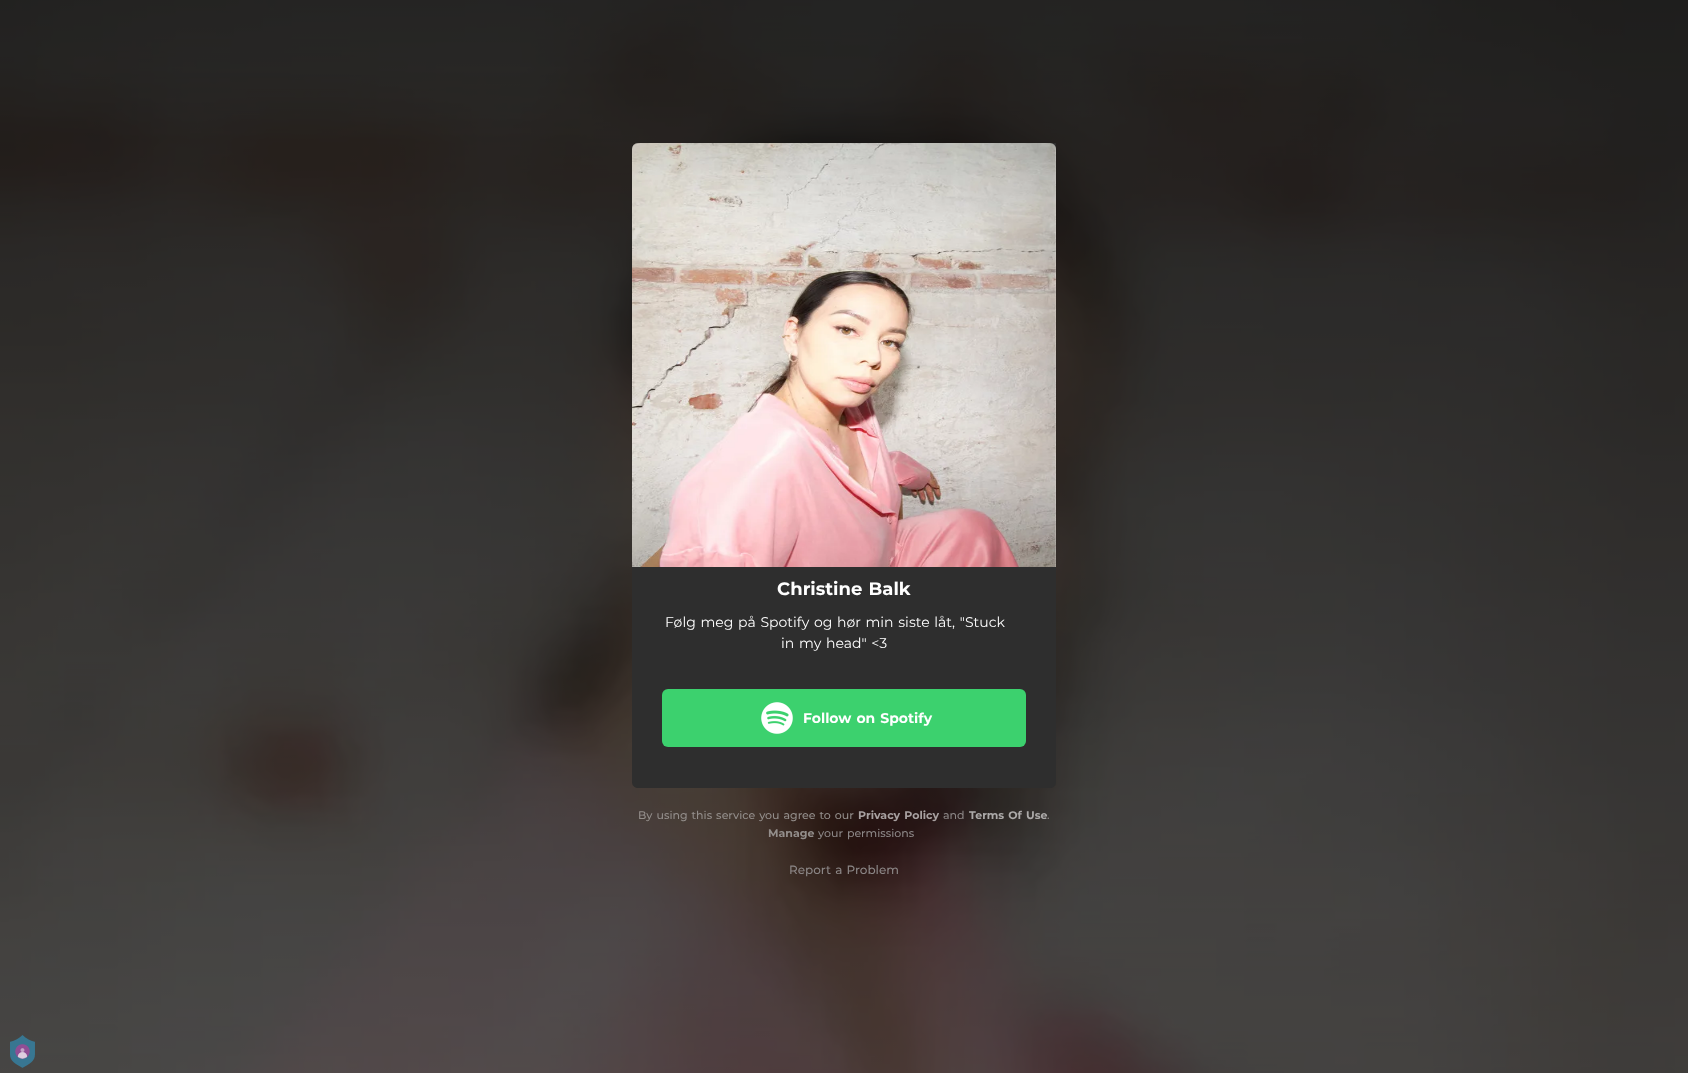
<?xml version="1.0" encoding="UTF-8"?>
<svg xmlns="http://www.w3.org/2000/svg" width="1688" height="1073">
    <rect width="100%" height="100%" fill="#FFFFFF"/>
    <image x="0" y="0" width="1688" height="1073" href="img_01.png"/>
    <path d="M 638 143 H 1056 V 567 H 638 C 634.5 567 632 564.5 632 561 V 149 C 632 145.5 634.5 143 638 143 Z" fill="#2F2F2F"/>
    <image x="632" y="143" width="424" height="424" href="img_02.png"/>
    <path d="M 632 567 H 1056 V 782 C 1056 785.5 1053.5 788 1050 788 H 638 C 634.5 788 632 785.5 632 782 Z" fill="#2E2E2E"/>
    <text x="777" y="595" word-spacing="1" font-family="Montserrat" font-size="18" font-weight="700" fill="#FFFFFF">Christine Balk</text>
    <text x="665" y="627" word-spacing="1" font-family="Montserrat" font-size="14" fill="#FFFFFF">Følg meg på Spotify og hør min siste låt, "Stuck</text>
    <text x="781" y="648" word-spacing="1" font-family="Montserrat" font-size="14" fill="#FFFFFF">in my head" &lt;3</text>
    <rect x="662" y="689" width="364" height="58" rx="6" fill="#3CD16E"/>
    <image x="761" y="702" width="32" height="32" href="img_03.png"/>
    <text x="803" y="723" word-spacing="1" font-family="Montserrat" font-size="14" font-weight="700" fill="#FFFFFF">Follow on Spotify</text>
    <text x="638" y="819" word-spacing="1" font-family="Montserrat" font-size="11" font-weight="500" fill="#938E8B">By using this service you agree to our</text>
    <text x="858" y="819" word-spacing="1" font-family="Montserrat" font-size="11" font-weight="700" fill="#A8A1A1">Privacy Policy</text>
    <text x="943" y="819" font-family="Montserrat" font-size="11" font-weight="500" fill="#8B8686">and</text>
    <text x="969" y="819" word-spacing="1" font-family="Montserrat" font-size="11" font-weight="700" fill="#ACAAA9">Terms Of Use</text>
    <text x="1047" y="819" font-family="Montserrat" font-size="11" font-weight="500" fill="#938E8B">.</text>
    <text x="768" y="837" font-family="Montserrat" font-size="11" font-weight="700" fill="#938E8B">Manage</text>
    <text x="818" y="837" word-spacing="1" font-family="Montserrat" font-size="11" font-weight="500" fill="#8B8686">your permissions</text>
    <text x="789" y="874" word-spacing="1" font-family="Montserrat" font-size="12" font-weight="500" fill="#8B8686">Report a Problem</text>
    <image x="10" y="1035" width="25" height="33" href="img_04.png"/>
</svg>
